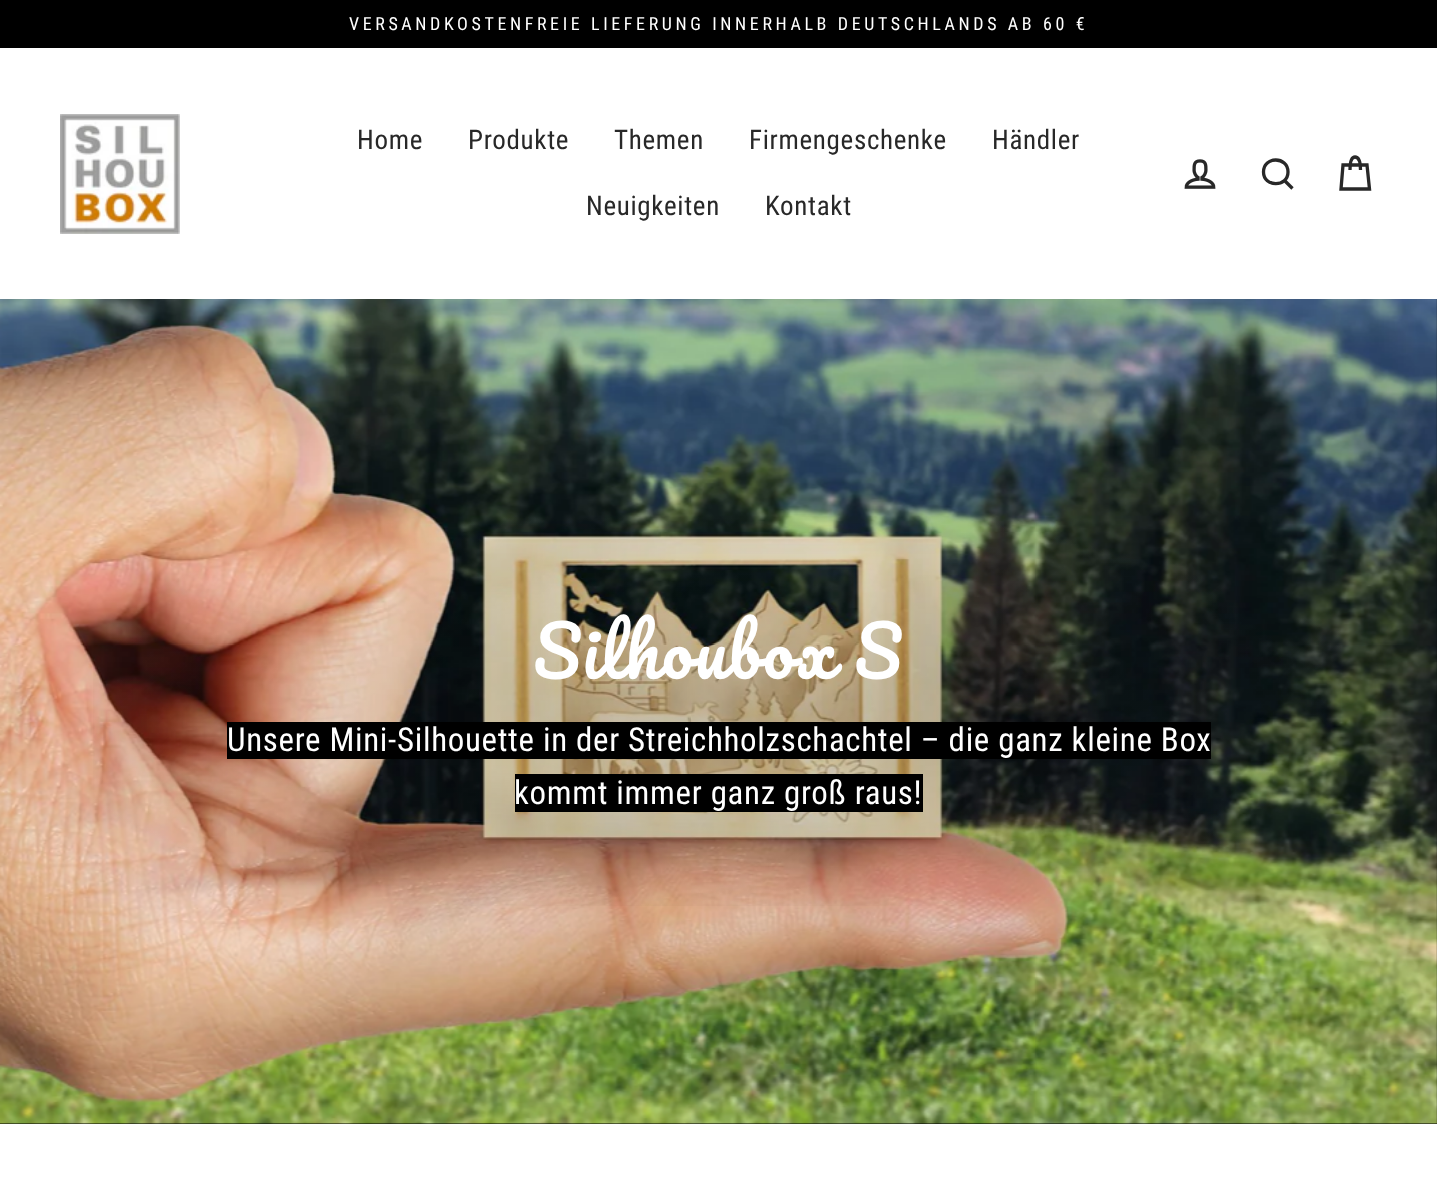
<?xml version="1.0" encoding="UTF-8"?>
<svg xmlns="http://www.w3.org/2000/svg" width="1437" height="1178">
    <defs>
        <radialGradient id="g1" gradientUnits="userSpaceOnUse" cx="0" cy="0" r="1" gradientTransform="matrix(1167 0 0 365 719 711)"><stop offset="0" stop-color="#000000" stop-opacity="0.2"/><stop offset="0.6" stop-color="#000000" stop-opacity="0"/></radialGradient>
    </defs>
    <rect width="100%" height="100%" fill="#FFFFFF"/>
    <rect x="0" y="0" width="1437" height="48" fill="#000000"/>
    <text x="349" y="30" font-family="Roboto Condensed" font-size="18" letter-spacing="3.6" fill="#FFFFFF">VERSANDKOSTENFREIE LIEFERUNG INNERHALB DEUTSCHLANDS AB 60 €</text>
    <image x="60" y="114" width="120" height="120" href="img_01.png"/>
    <text x="357" y="149" font-family="Roboto Condensed" font-size="27" letter-spacing="0.68" fill="#282828">Home</text>
    <text x="468" y="149" font-family="Roboto Condensed" font-size="27" letter-spacing="0.68" fill="#282828">Produkte</text>
    <text x="614" y="149" font-family="Roboto Condensed" font-size="27" letter-spacing="0.68" fill="#282828">Themen</text>
    <text x="749" y="149" font-family="Roboto Condensed" font-size="27" letter-spacing="0.68" fill="#282828">Firmengeschenke</text>
    <text x="992" y="149" font-family="Roboto Condensed" font-size="27" letter-spacing="0.68" fill="#282828">Händler</text>
    <text x="586" y="215" font-family="Roboto Condensed" font-size="27" letter-spacing="0.68" fill="#282828">Neuigkeiten</text>
    <text x="765" y="215" font-family="Roboto Condensed" font-size="27" letter-spacing="0.68" fill="#282828">Kontakt</text>
    <image x="1184" y="159" width="32" height="30" href="img_02.png"/>
    <path d="M 1288 172 C 1288 187.5 1263.5 187.5 1263.5 172 C 1263.5 156 1288 156 1288 172 Z M 1292.5 188.5 L 1284.5 180.5" fill="none" stroke="#282828" stroke-width="3.3"/>
    <path d="M 1350 170 C 1350 159.5 1352 157 1355 157 C 1358 157 1360.5 159.5 1360.5 170 M 1343 165 H 1367 L 1369.5 189 H 1341 Z" fill="none" stroke="#282828" stroke-width="3.3"/>
    <rect x="0" y="299" width="1437" height="825" fill="#000000"/>
    <image x="0" y="299" width="1437" height="825" href="img_03.png"/>
    <rect x="93" y="516" width="1248" height="390" fill="url(#g1)"/>
    <text x="533" y="679" word-spacing="-1" font-family="Pacifico" font-size="69" letter-spacing="1.75" fill="#FFFFFF">Silhoubox S</text>
    <rect x="227" y="722" width="984" height="37" fill="#000000"/>
    <text x="227" y="751" font-family="Roboto Condensed" font-size="32.95" letter-spacing="0.68" fill="#FFFFFF">Unsere Mini-Silhouette in der Streichholzschachtel – die ganz kleine Box</text>
    <rect x="515" y="774" width="408" height="38" fill="#000000"/>
    <text x="514" y="804" font-family="Roboto Condensed" font-size="32.95" letter-spacing="0.68" fill="#FFFFFF">kommt immer ganz groß raus!</text>
</svg>
